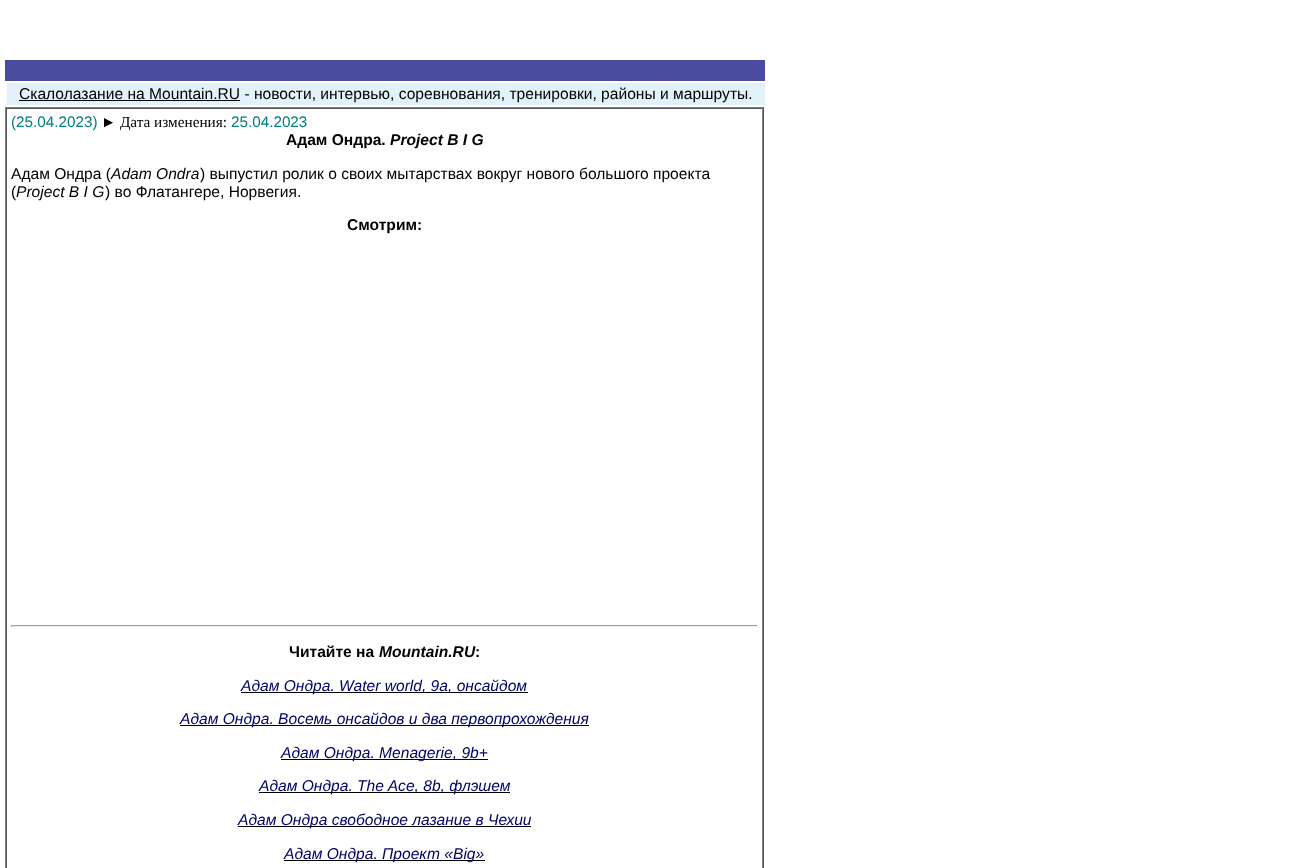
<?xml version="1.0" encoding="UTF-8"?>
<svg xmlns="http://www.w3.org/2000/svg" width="1293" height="868">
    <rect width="100%" height="100%" fill="#FFFFFF"/>
    <rect x="5" y="60" width="760" height="21" fill="#4A4C9F"/>
    <rect x="7" y="83" width="758" height="22" fill="#E1F2FA"/>
    <rect x="19" y="100" width="221" height="1" fill="#000000"/>
    <text x="19" y="99" font-family="Liberation Sans" font-size="15.6" fill="#000000">Скалолазание на Mountain.RU - новости, интервью, соревнования, тренировки, районы и маршруты.</text>
    <rect x="5" y="107" width="759" height="1" fill="#808080"/>
    <rect x="763" y="107" width="1" height="761" fill="#555555"/>
    <rect x="5" y="107" width="1" height="761" fill="#808080"/>
    <rect x="6" y="108" width="757" height="1" fill="#555555"/>
    <rect x="762" y="108" width="1" height="760" fill="#808080"/>
    <rect x="6" y="108" width="1" height="760" fill="#555555"/>
    <text x="11" y="127" font-family="Liberation Sans" font-size="15.25" fill="#008080">(25.04.2023)</text>
    <text x="101" y="127" font-family="Liberation Serif" font-size="15.25" fill="#000000">► Дата изменения:</text>
    <text x="231" y="127" font-family="Liberation Sans" font-size="15.25" fill="#008080">25.04.2023</text>
    <text x="286" y="145" font-family="Liberation Sans" font-size="15.6" font-weight="700" fill="#000000">Адам Ондра.</text>
    <text x="390" y="145" font-family="Liberation Sans" font-size="15.6" font-weight="700" font-style="italic" fill="#000000">Project B I G</text>
    <text x="11" y="179" font-family="Liberation Sans" font-size="15.6" fill="#000000">Адам Ондра (</text>
    <text x="111" y="179" font-family="Liberation Sans" font-size="15.6" font-style="italic" fill="#000000">Adam Ondra</text>
    <text x="200" y="179" font-family="Liberation Sans" font-size="15.6" fill="#000000">) выпустил ролик о своих мытарствах вокруг нового большого проекта</text>
    <text x="11" y="197" font-family="Liberation Sans" font-size="15.6" fill="#000000">(</text>
    <text x="16" y="197" font-family="Liberation Sans" font-size="15.6" font-style="italic" fill="#000000">Project B I G</text>
    <text x="105" y="197" font-family="Liberation Sans" font-size="15.6" fill="#000000">) во Флатангере, Норвегия.</text>
    <text x="347" y="230" font-family="Liberation Sans" font-size="15.6" font-weight="700" fill="#000000">Смотрим:</text>
    <rect x="11" y="625" width="747" height="1" fill="#9F9F9F"/>
    <rect x="757" y="625" width="1" height="2" fill="#EEEEEE"/>
    <rect x="11" y="626" width="747" height="1" fill="#EEEEEE"/>
    <rect x="11" y="625" width="1" height="2" fill="#9F9F9F"/>
    <text x="289" y="657" font-family="Liberation Sans" font-size="15.6" font-weight="700" fill="#000000">Читайте на</text>
    <text x="379" y="657" font-family="Liberation Sans" font-size="15.6" font-weight="700" font-style="italic" fill="#000000">Mountain.RU</text>
    <text x="475" y="657" font-family="Liberation Sans" font-size="15.6" font-weight="700" fill="#000000">:</text>
    <rect x="241" y="692" width="287" height="1" fill="#000000"/>
    <text x="241" y="691" font-family="Liberation Sans" font-size="15.6" font-style="italic" fill="#000066">Адам Ондра. Water world, 9a, онсайдом</text>
    <rect x="180" y="725" width="409" height="1" fill="#000000"/>
    <text x="180" y="724" font-family="Liberation Sans" font-size="15.6" font-style="italic" fill="#000066">Адам Ондра. Восемь онсайдов и два первопрохождения</text>
    <rect x="281" y="759" width="207" height="1" fill="#000000"/>
    <text x="281" y="758" font-family="Liberation Sans" font-size="15.6" font-style="italic" fill="#000066">Адам Ондра. Menagerie, 9b+</text>
    <rect x="259" y="792" width="251" height="1" fill="#000000"/>
    <text x="259" y="791" font-family="Liberation Sans" font-size="15.6" font-style="italic" fill="#000066">Адам Ондра. The Ace, 8b, флэшем</text>
    <rect x="238" y="826" width="293" height="1" fill="#000000"/>
    <text x="238" y="825" font-family="Liberation Sans" font-size="15.6" font-style="italic" fill="#000066">Адам Ондра свободное лазание в Чехии</text>
    <rect x="284" y="860" width="169" height="1" fill="#000000"/>
    <text x="284" y="859" font-family="Liberation Sans" font-size="15.6" font-style="italic" fill="#000066">Адам Ондра. Проект «</text>
    <rect x="453" y="860" width="32" height="1" fill="#000000"/>
    <text x="453" y="859" font-family="Liberation Sans" font-size="15.6" font-style="italic" fill="#000066">Big»</text>
</svg>
